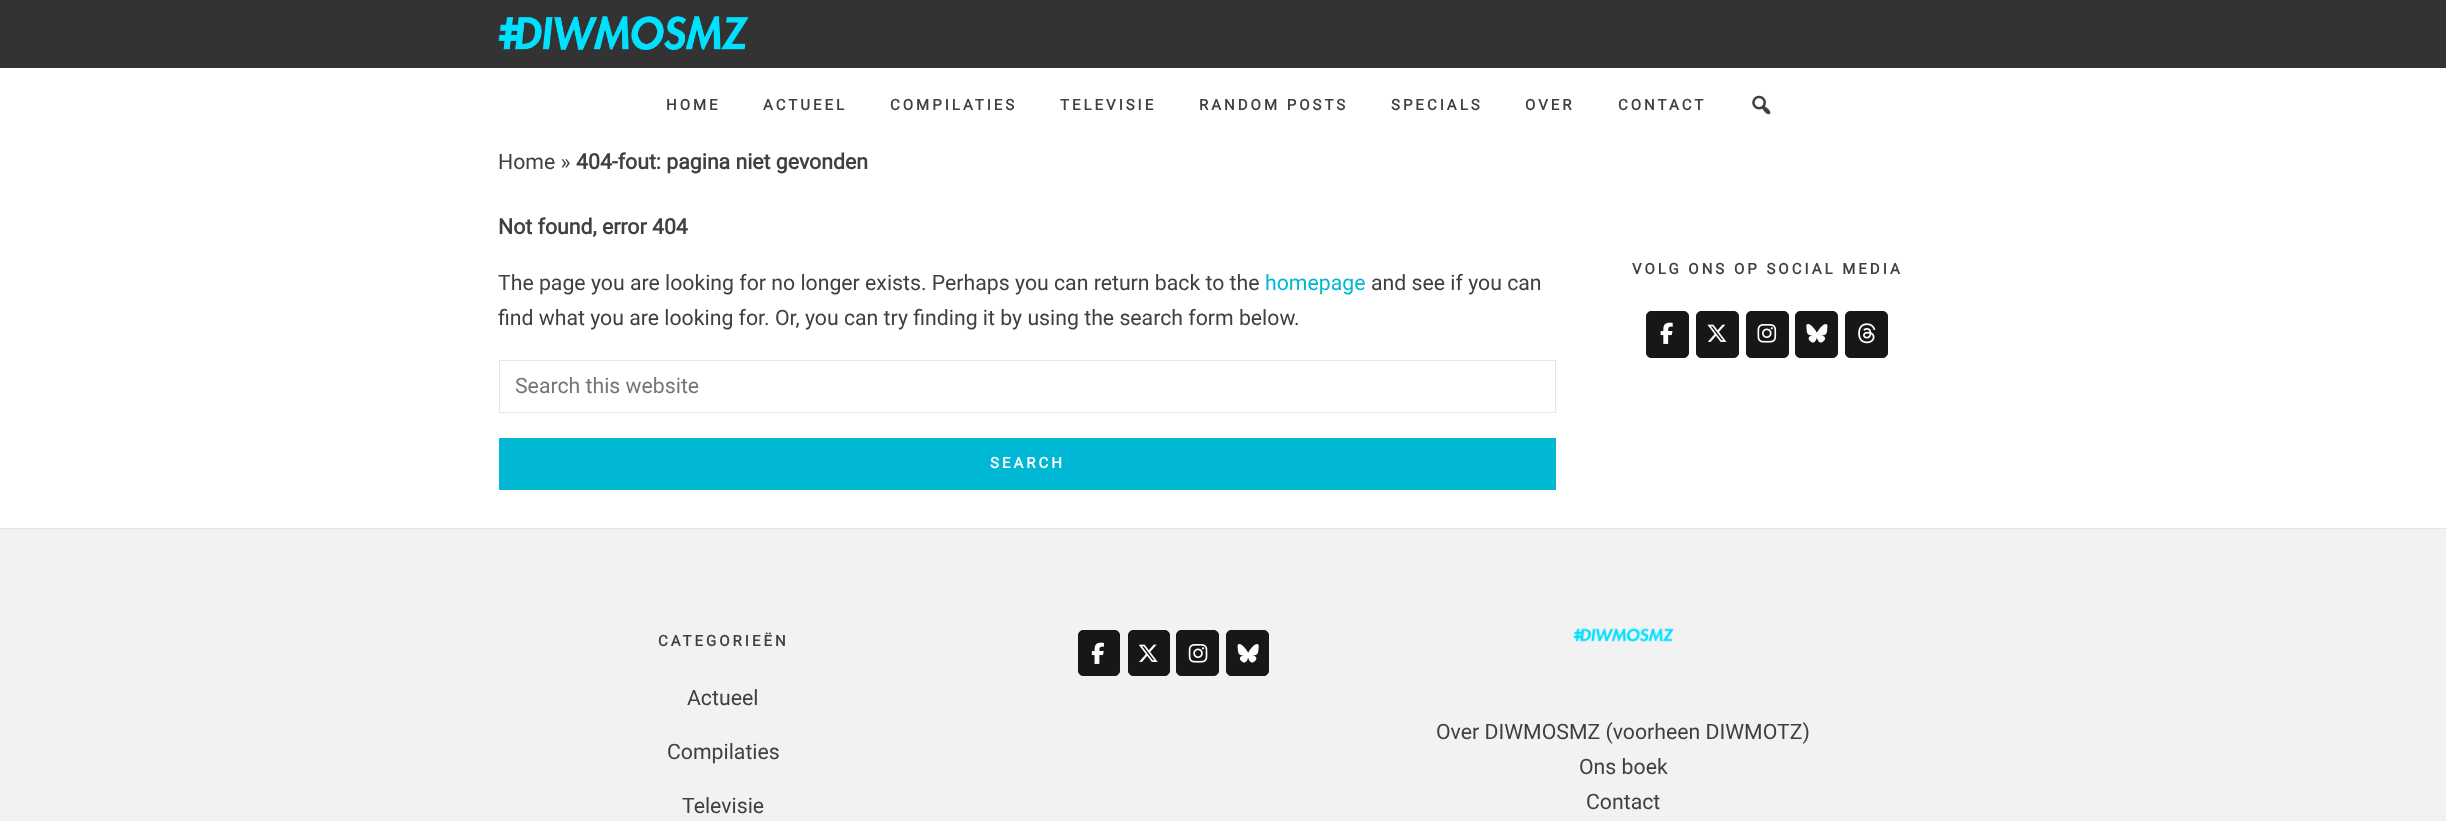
<?xml version="1.0" encoding="UTF-8"?>
<svg xmlns="http://www.w3.org/2000/svg" width="2446" height="821">
    <rect width="100%" height="100%" fill="#FFFFFF"/>
    <rect x="0" y="0" width="2446" height="68" fill="#333333"/>
    <image x="498" y="16" width="251" height="34" href="img_01.png"/>
    <text x="666" y="110" font-family="Roboto" font-size="15" font-weight="700" letter-spacing="3" fill="#404040">HOME</text>
    <text x="763" y="110" font-family="Roboto" font-size="15" font-weight="700" letter-spacing="3" fill="#404040">ACTUEEL</text>
    <text x="890" y="110" font-family="Roboto" font-size="15" font-weight="700" letter-spacing="3" fill="#404040">COMPILATIES</text>
    <text x="1060" y="110" font-family="Roboto" font-size="15" font-weight="700" letter-spacing="3" fill="#404040">TELEVISIE</text>
    <text x="1199" y="110" font-family="Roboto" font-size="15" font-weight="700" letter-spacing="3" fill="#404040">RANDOM POSTS</text>
    <text x="1391" y="110" font-family="Roboto" font-size="15" font-weight="700" letter-spacing="3" fill="#404040">SPECIALS</text>
    <text x="1525" y="110" font-family="Roboto" font-size="15" font-weight="700" letter-spacing="3" fill="#404040">OVER</text>
    <text x="1618" y="110" font-family="Roboto" font-size="15" font-weight="700" letter-spacing="3" fill="#404040">CONTACT</text>
    <image x="1752" y="95" width="19" height="20" href="img_02.png"/>
    <text x="498" y="169" font-family="Roboto" font-size="21.25" fill="#404040">Home »</text>
    <text x="576" y="169" font-family="Roboto" font-size="21.25" font-weight="700" fill="#404040">404-fout: pagina niet gevonden</text>
    <text x="498" y="234" font-family="Roboto" font-size="21.25" font-weight="700" fill="#404040">Not found, error 404</text>
    <text x="498" y="290" font-family="Roboto" font-size="21.25" fill="#404040">The page you are looking for no longer exists. Perhaps you can return back to the</text>
    <text x="1265" y="290" font-family="Roboto" font-size="21.25" fill="#00B8D4">homepage</text>
    <text x="1371" y="290" font-family="Roboto" font-size="21.25" fill="#404040">and see if you can</text>
    <text x="498" y="325" font-family="Roboto" font-size="21.25" fill="#404040">find what you are looking for. Or, you can try finding it by using the search form below.</text>
    <rect x="499.5" y="360.5" width="1056" height="52" fill="none" stroke="#E5E5E5"/>
    <text x="515" y="393" font-family="Roboto" font-size="21.25" fill="#757575">Search this website</text>
    <rect x="499" y="438" width="1057" height="52" fill="#00B8D4"/>
    <text x="990" y="468" font-family="Roboto" font-size="15" font-weight="700" letter-spacing="3" fill="#FFFFFF">SEARCH</text>
    <text x="1632" y="274" font-family="Roboto" font-size="15" font-weight="700" letter-spacing="3" fill="#404040">VOLG ONS OP SOCIAL MEDIA</text>
    <rect x="1646.5" y="311.5" width="42" height="46" rx="4.5" fill="#171717" stroke="#171717"/>
    <image x="1660" y="322" width="13" height="22" href="img_03.png"/>
    <rect x="1696.5" y="311.5" width="42" height="46" rx="4.5" fill="#171717" stroke="#171717"/>
    <image x="1707" y="324" width="20" height="18" href="img_04.png"/>
    <rect x="1746.5" y="311.5" width="42" height="46" rx="4.5" fill="#171717" stroke="#171717"/>
    <image x="1757" y="324" width="20" height="19" href="img_05.png"/>
    <rect x="1795.5" y="311.5" width="42" height="46" rx="4.5" fill="#171717" stroke="#171717"/>
    <image x="1806" y="324" width="22" height="19" href="img_06.png"/>
    <rect x="1845.5" y="311.5" width="42" height="46" rx="4.5" fill="#171717" stroke="#171717"/>
    <image x="1858" y="323" width="18" height="21" href="img_07.png"/>
    <rect x="0" y="529" width="2446" height="292" fill="#F2F2F2"/>
    <rect x="0" y="528" width="2446" height="1" fill="#E5E5E5"/>
    <text x="658" y="646" font-family="Roboto" font-size="15" font-weight="700" letter-spacing="3" fill="#404040">CATEGORIEËN</text>
    <text x="687" y="705" font-family="Roboto" font-size="21.25" fill="#404040">Actueel</text>
    <text x="667" y="759" font-family="Roboto" font-size="21.25" fill="#404040">Compilaties</text>
    <text x="682" y="813" font-family="Roboto" font-size="21.25" fill="#404040">Televisie</text>
    <rect x="1078.5" y="630.5" width="41" height="45" rx="4.5" fill="#171717" stroke="#171717"/>
    <image x="1091" y="642" width="13" height="22" href="img_08.png"/>
    <rect x="1128.5" y="630.5" width="41" height="45" rx="4.5" fill="#171717" stroke="#171717"/>
    <image x="1138" y="644" width="20" height="18" href="img_09.png"/>
    <rect x="1176.5" y="630.5" width="42" height="45" rx="4.5" fill="#171717" stroke="#171717"/>
    <image x="1188" y="644" width="20" height="19" href="img_10.png"/>
    <rect x="1226.5" y="630.5" width="42" height="45" rx="4.5" fill="#171717" stroke="#171717"/>
    <image x="1237" y="644" width="22" height="19" href="img_11.png"/>
    <image x="1573" y="628" width="101" height="14" href="img_12.png"/>
    <text x="1436" y="739" font-family="Roboto" font-size="21.25" fill="#404040">Over DIWMOSMZ (voorheen DIWMOTZ)</text>
    <text x="1579" y="774" font-family="Roboto" font-size="21.25" fill="#404040">Ons boek</text>
    <text x="1586" y="809" font-family="Roboto" font-size="21.25" fill="#404040">Contact</text>
</svg>
